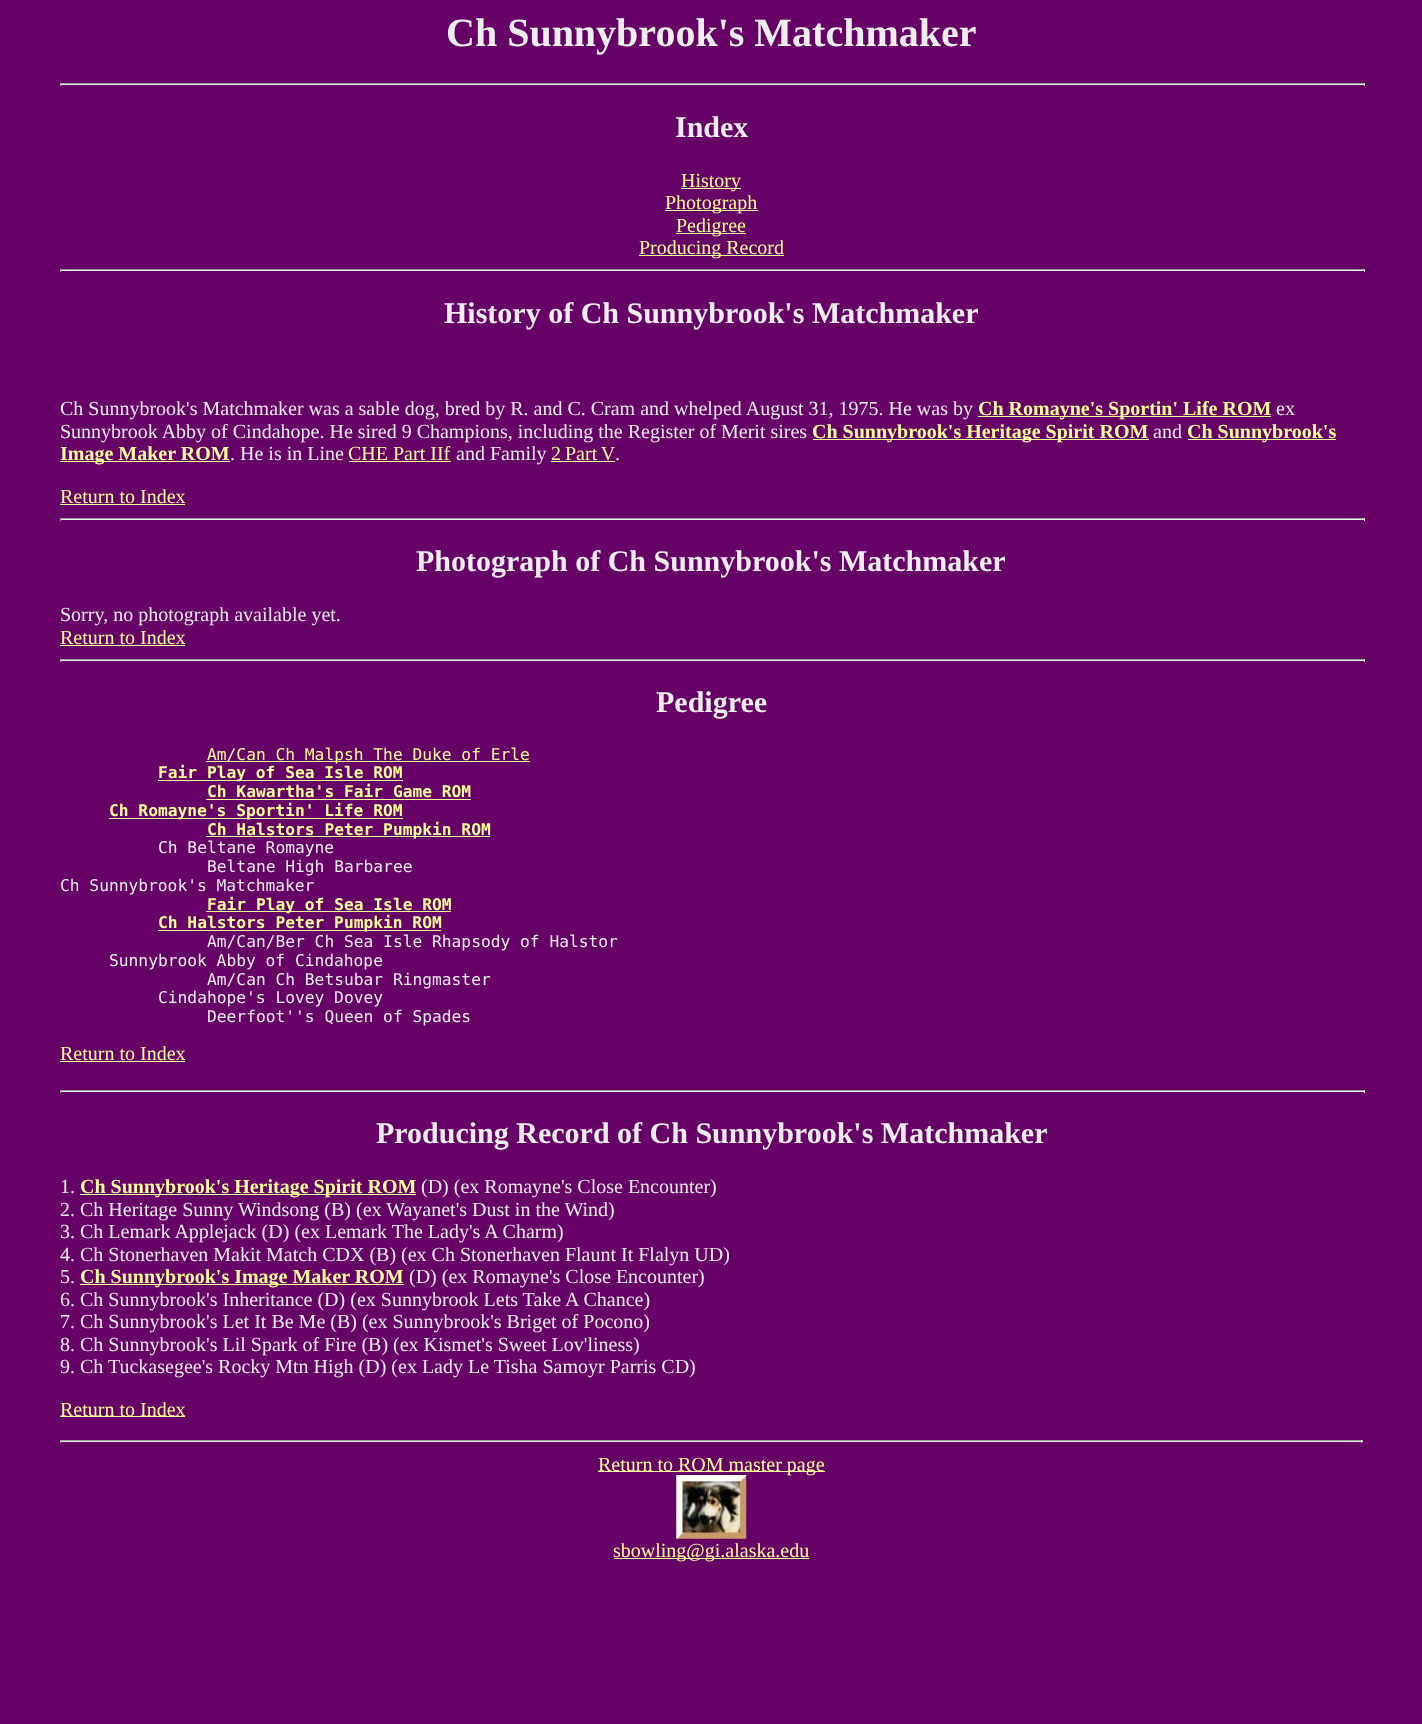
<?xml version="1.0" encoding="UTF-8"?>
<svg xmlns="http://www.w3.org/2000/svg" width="1422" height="1724">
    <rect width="100%" height="100%" fill="#660066"/>
    <text x="446" y="46" font-family="Liberation Serif" font-size="40" font-weight="700" fill="#EEEEEE">Ch Sunnybrook's Matchmaker</text>
    <rect x="60" y="83" width="1305" height="1" fill="#9F9F9F"/>
    <rect x="1364" y="83" width="1" height="3" fill="#EEEEEE"/>
    <rect x="60" y="84" width="1305" height="1" fill="#EEEEEE"/>
    <rect x="60" y="83" width="1" height="3" fill="#9F9F9F"/>
    <text x="675" y="137" font-family="Liberation Serif" font-size="30" font-weight="700" fill="#EEEEEE">Index</text>
    <rect x="681" y="188" width="60" height="1" fill="#FFFF99"/>
    <text x="681" y="187" font-family="Liberation Serif" font-size="20" fill="#FFFF99">History</text>
    <rect x="665" y="210" width="93" height="1" fill="#FFFF99"/>
    <text x="665" y="209" font-family="Liberation Serif" font-size="20" fill="#FFFF99">Photograph</text>
    <rect x="676" y="233" width="70" height="1" fill="#FFFF99"/>
    <text x="676" y="232" font-family="Liberation Serif" font-size="20" fill="#FFFF99">Pedigree</text>
    <rect x="639" y="255" width="145" height="1" fill="#FFFF99"/>
    <text x="639" y="254" font-family="Liberation Serif" font-size="20" fill="#FFFF99">Producing Record</text>
    <rect x="60" y="269" width="1305" height="1" fill="#9F9F9F"/>
    <rect x="1364" y="269" width="1" height="3" fill="#EEEEEE"/>
    <rect x="60" y="270" width="1305" height="1" fill="#EEEEEE"/>
    <rect x="60" y="269" width="1" height="3" fill="#9F9F9F"/>
    <text x="444" y="323" font-family="Liberation Serif" font-size="30" font-weight="700" fill="#EEEEEE">History of Ch Sunnybrook's Matchmaker</text>
    <text x="60" y="415" font-family="Liberation Serif" font-size="20" fill="#EEEEEE">Ch Sunnybrook's Matchmaker was a sable dog, bred by R. and C. Cram and whelped August 31, 1975. He was by</text>
    <rect x="978" y="416" width="293" height="1" fill="#FFFF99"/>
    <text x="978" y="415" font-family="Liberation Serif" font-size="20" font-weight="700" fill="#FFFF99">Ch Romayne's Sportin' Life ROM</text>
    <text x="1276" y="415" font-family="Liberation Serif" font-size="20" fill="#EEEEEE">ex</text>
    <text x="60" y="438" font-family="Liberation Serif" font-size="20" fill="#EEEEEE">Sunnybrook Abby of Cindahope. He sired 9 Champions, including the Register of Merit sires</text>
    <rect x="813" y="439" width="336" height="1" fill="#FFFF99"/>
    <text x="812" y="438" font-family="Liberation Serif" font-size="20" font-weight="700" fill="#FFFF99">Ch Sunnybrook's Heritage Spirit ROM</text>
    <text x="1153" y="438" font-family="Liberation Serif" font-size="20" fill="#EEEEEE">and</text>
    <rect x="1188" y="439" width="148" height="1" fill="#FFFF99"/>
    <text x="1187" y="438" font-family="Liberation Serif" font-size="20" font-weight="700" fill="#FFFF99">Ch Sunnybrook's</text>
    <rect x="60" y="461" width="170" height="1" fill="#FFFF99"/>
    <text x="60" y="460" font-family="Liberation Serif" font-size="20" font-weight="700" fill="#FFFF99">Image Maker ROM</text>
    <text x="230" y="460" font-family="Liberation Serif" font-size="20" fill="#EEEEEE">. He is in Line</text>
    <text x="348" y="460" font-family="Liberation Serif" font-size="20" fill="#FFFF99">CHE Part IIf</text>
    <rect x="349" y="461" width="102" height="1" fill="#FFFF99"/>
    <text x="456" y="460" font-family="Liberation Serif" font-size="20" fill="#EEEEEE">and Family</text>
    <text x="551" y="460" word-spacing="-1" font-family="Liberation Serif" font-size="20" fill="#FFFF99">2 Part V</text>
    <rect x="551" y="461" width="64" height="1" fill="#FFFF99"/>
    <text x="615" y="460" font-family="Liberation Serif" font-size="20" fill="#EEEEEE">.</text>
    <text x="60" y="503" font-family="Liberation Serif" font-size="20" fill="#FFFF99">Return to Index</text>
    <rect x="60" y="504" width="125" height="1" fill="#FFFF99"/>
    <rect x="60" y="518" width="1305" height="1" fill="#9F9F9F"/>
    <rect x="1364" y="518" width="1" height="3" fill="#EEEEEE"/>
    <rect x="60" y="519" width="1305" height="1" fill="#EEEEEE"/>
    <rect x="60" y="518" width="1" height="3" fill="#9F9F9F"/>
    <text x="416" y="571" font-family="Liberation Serif" font-size="30" font-weight="700" fill="#EEEEEE">Photograph of Ch Sunnybrook's Matchmaker</text>
    <text x="60" y="621" font-family="Liberation Serif" font-size="20" fill="#EEEEEE">Sorry, no photograph available yet.</text>
    <text x="60" y="644" font-family="Liberation Serif" font-size="20" fill="#FFFF99">Return to Index</text>
    <rect x="60" y="645" width="125" height="1" fill="#FFFF99"/>
    <rect x="60" y="659" width="1305" height="1" fill="#9F9F9F"/>
    <rect x="1364" y="659" width="1" height="3" fill="#EEEEEE"/>
    <rect x="60" y="660" width="1305" height="1" fill="#EEEEEE"/>
    <rect x="60" y="659" width="1" height="3" fill="#9F9F9F"/>
    <text x="656" y="712" font-family="Liberation Serif" font-size="30" font-weight="700" fill="#EEEEEE">Pedigree</text>
    <rect x="206" y="761" width="324" height="1" fill="#FFFF99"/>
    <text x="207" y="760" font-family="DejaVu Sans Mono" font-size="16.25" fill="#FFFF99">Am/Can Ch Malpsh The Duke of Erle</text>
    <rect x="158" y="780" width="245" height="1" fill="#FFFF99"/>
    <text x="158" y="778" font-family="DejaVu Sans Mono" font-size="16.25" font-weight="700" fill="#FFFF99">Fair Play of Sea Isle ROM</text>
    <text x="207" y="797" font-family="DejaVu Sans Mono" font-size="16.25" font-weight="700" fill="#FFFF99">Ch Kawartha's Fair Game ROM</text>
    <rect x="206" y="799" width="265" height="1" fill="#FFFF99"/>
    <rect x="109" y="818" width="294" height="1" fill="#FFFF99"/>
    <text x="109" y="816" font-family="DejaVu Sans Mono" font-size="16.25" font-weight="700" fill="#FFFF99">Ch Romayne's Sportin' Life ROM</text>
    <rect x="206" y="836" width="284" height="1" fill="#FFFF99"/>
    <text x="207" y="835" font-family="DejaVu Sans Mono" font-size="16.25" font-weight="700" fill="#FFFF99">Ch Halstors Peter Pumpkin ROM</text>
    <text x="158" y="853" font-family="DejaVu Sans Mono" font-size="16.25" fill="#EEEEEE">Ch Beltane Romayne</text>
    <text x="207" y="872" font-family="DejaVu Sans Mono" font-size="16.25" fill="#EEEEEE">Beltane High Barbaree</text>
    <text x="60" y="891" font-family="DejaVu Sans Mono" font-size="16.25" fill="#EEEEEE">Ch Sunnybrook's Matchmaker</text>
    <rect x="206" y="911" width="245" height="1" fill="#FFFF99"/>
    <text x="207" y="910" font-family="DejaVu Sans Mono" font-size="16.25" font-weight="700" fill="#FFFF99">Fair Play of Sea Isle ROM</text>
    <rect x="158" y="930" width="283" height="1" fill="#FFFF99"/>
    <text x="158" y="928" font-family="DejaVu Sans Mono" font-size="16.25" font-weight="700" fill="#FFFF99">Ch Halstors Peter Pumpkin ROM</text>
    <text x="207" y="947" font-family="DejaVu Sans Mono" font-size="16.25" fill="#EEEEEE">Am/Can/Ber Ch Sea Isle Rhapsody of Halstor</text>
    <text x="109" y="966" font-family="DejaVu Sans Mono" font-size="16.25" fill="#EEEEEE">Sunnybrook Abby of Cindahope</text>
    <text x="207" y="985" font-family="DejaVu Sans Mono" font-size="16.25" fill="#EEEEEE">Am/Can Ch Betsubar Ringmaster</text>
    <text x="158" y="1003" font-family="DejaVu Sans Mono" font-size="16.25" fill="#EEEEEE">Cindahope's Lovey Dovey</text>
    <text x="207" y="1022" font-family="DejaVu Sans Mono" font-size="16.25" fill="#EEEEEE">Deerfoot''s Queen of Spades</text>
    <text x="60" y="1060" font-family="Liberation Serif" font-size="20" fill="#FFFF99">Return to Index</text>
    <rect x="60" y="1061" width="125" height="1" fill="#FFFF99"/>
    <rect x="60" y="1090" width="1305" height="1" fill="#9F9F9F"/>
    <rect x="1364" y="1090" width="1" height="3" fill="#EEEEEE"/>
    <rect x="60" y="1091" width="1305" height="1" fill="#EEEEEE"/>
    <rect x="60" y="1090" width="1" height="3" fill="#9F9F9F"/>
    <text x="376" y="1143" font-family="Liberation Serif" font-size="30" font-weight="700" fill="#EEEEEE">Producing Record of Ch Sunnybrook's Matchmaker</text>
    <text x="60" y="1193" font-family="Liberation Serif" font-size="20" fill="#EEEEEE">1.</text>
    <rect x="80" y="1194" width="336" height="1" fill="#FFFF99"/>
    <text x="80" y="1193" font-family="Liberation Serif" font-size="20" font-weight="700" fill="#FFFF99">Ch Sunnybrook's Heritage Spirit ROM</text>
    <text x="421" y="1193" font-family="Liberation Serif" font-size="20" fill="#EEEEEE">(D) (ex Romayne's Close Encounter)</text>
    <text font-family="Liberation Serif" font-size="20" fill="#EEEEEE">
        <tspan x="60" y="1216">2. Ch Heritage Sunny Windsong (B) (ex Wayanet's Dust in the Wind)</tspan>
        <tspan x="60" y="1238">3. Ch Lemark Applejack (D) (ex Lemark The Lady's A Charm)</tspan>
        <tspan x="60" y="1261">4. Ch Stonerhaven Makit Match CDX (B) (ex Ch Stonerhaven Flaunt It Flalyn UD)</tspan>
        <tspan x="60" y="1283">5.</tspan>
    </text>
    <rect x="80" y="1284" width="324" height="1" fill="#FFFF99"/>
    <text x="80" y="1283" font-family="Liberation Serif" font-size="20" font-weight="700" fill="#FFFF99">Ch Sunnybrook's Image Maker ROM</text>
    <text x="409" y="1283" font-family="Liberation Serif" font-size="20" fill="#EEEEEE">(D) (ex Romayne's Close Encounter)</text>
    <text font-family="Liberation Serif" font-size="20" fill="#EEEEEE">
        <tspan x="60" y="1306">6. Ch Sunnybrook's Inheritance (D) (ex Sunnybrook Lets Take A Chance)</tspan>
        <tspan x="60" y="1328">7. Ch Sunnybrook's Let It Be Me (B) (ex Sunnybrook's Briget of Pocono)</tspan>
        <tspan x="60" y="1351">8. Ch Sunnybrook's Lil Spark of Fire (B) (ex Kismet's Sweet Lov'liness)</tspan>
        <tspan x="60" y="1373">9. Ch Tuckasegee's Rocky Mtn High (D) (ex Lady Le Tisha Samoyr Parris CD)</tspan>
    </text>
    <rect x="60" y="1416" width="125" height="1" fill="#FFFF99"/>
    <text x="60" y="1416" font-family="Liberation Serif" font-size="20" fill="#FFFF99">Return to Index</text>
    <rect x="60" y="1440" width="1303" height="1" fill="#9F9F9F"/>
    <rect x="1361" y="1440" width="1" height="3" fill="#EEEEEE"/>
    <rect x="60" y="1441" width="1303" height="1" fill="#EEEEEE"/>
    <rect x="60" y="1440" width="1" height="3" fill="#9F9F9F"/>
    <rect x="598" y="1471" width="227" height="1" fill="#FFFF99"/>
    <text x="598" y="1471" font-family="Liberation Serif" font-size="20" fill="#FFFF99">Return to ROM master page</text>
    <image x="676" y="1475" width="71" height="64" href="img_01.png"/>
    <rect x="614" y="1558" width="195" height="1" fill="#FFFF99"/>
    <text x="613" y="1557" font-family="Liberation Serif" font-size="20" fill="#FFFF99">sbowling@gi.alaska.edu</text>
</svg>
